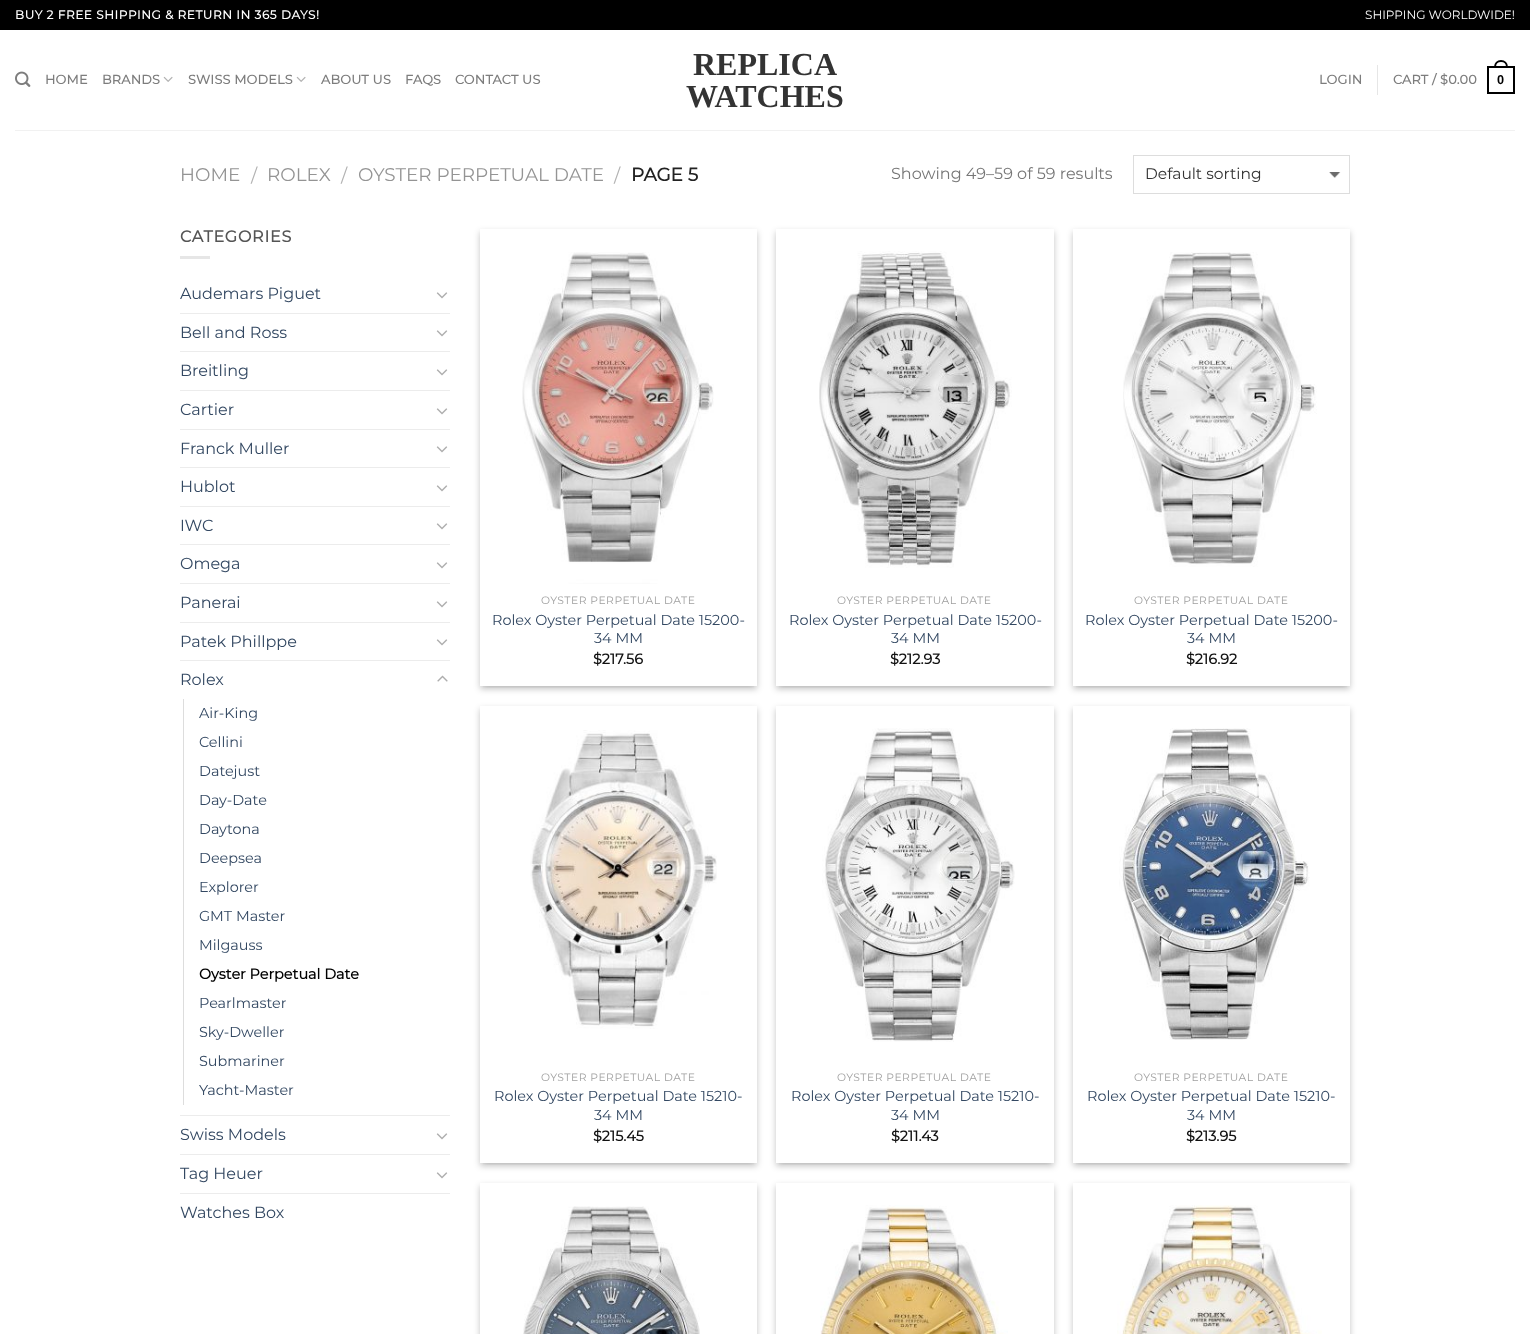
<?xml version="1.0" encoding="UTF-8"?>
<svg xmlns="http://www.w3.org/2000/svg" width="1530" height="1334">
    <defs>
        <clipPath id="clip1"><path d="M 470 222 H 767 V 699 H 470 Z M 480 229 H 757 V 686 H 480 Z" clip-rule="evenodd"/></clipPath>
        <filter id="blur1" x="-50%" y="-200%" width="200%" height="500%"><feGaussianBlur stdDeviation="3"/></filter>
        <clipPath id="clip2"><rect x="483" y="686" width="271" height="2"/></clipPath>
        <clipPath id="clip3"><path d="M 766 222 H 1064 V 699 H 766 Z M 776 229 H 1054 V 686 H 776 Z" clip-rule="evenodd"/></clipPath>
        <clipPath id="clip4"><rect x="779" y="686" width="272" height="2"/></clipPath>
        <clipPath id="clip5"><path d="M 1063 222 H 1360 V 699 H 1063 Z M 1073 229 H 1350 V 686 H 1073 Z" clip-rule="evenodd"/></clipPath>
        <clipPath id="clip6"><rect x="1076" y="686" width="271" height="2"/></clipPath>
        <clipPath id="clip7"><path d="M 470 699 H 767 V 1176 H 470 Z M 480 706 H 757 V 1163 H 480 Z" clip-rule="evenodd"/></clipPath>
        <clipPath id="clip8"><rect x="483" y="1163" width="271" height="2"/></clipPath>
        <clipPath id="clip9"><path d="M 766 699 H 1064 V 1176 H 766 Z M 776 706 H 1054 V 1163 H 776 Z" clip-rule="evenodd"/></clipPath>
        <clipPath id="clip10"><rect x="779" y="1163" width="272" height="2"/></clipPath>
        <clipPath id="clip11"><path d="M 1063 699 H 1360 V 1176 H 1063 Z M 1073 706 H 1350 V 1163 H 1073 Z" clip-rule="evenodd"/></clipPath>
        <clipPath id="clip12"><rect x="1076" y="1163" width="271" height="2"/></clipPath>
        <clipPath id="clip13"><path d="M 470 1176 H 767 V 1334 H 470 Z M 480 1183 H 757 V 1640 H 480 Z" clip-rule="evenodd"/></clipPath>
        <clipPath id="clip14"><path d="M 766 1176 H 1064 V 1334 H 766 Z M 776 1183 H 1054 V 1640 H 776 Z" clip-rule="evenodd"/></clipPath>
        <clipPath id="clip15"><path d="M 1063 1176 H 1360 V 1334 H 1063 Z M 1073 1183 H 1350 V 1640 H 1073 Z" clip-rule="evenodd"/></clipPath>
    </defs>
    <rect width="100%" height="100%" fill="#FFFFFF"/>
    <rect x="0" y="0" width="1530" height="30" fill="#000000"/>
    <text x="15" y="19" font-family="Montserrat" font-size="12" font-weight="700" letter-spacing="0.6" fill="#FFFFFF">BUY 2 FREE SHIPPING &amp; RETURN IN 365 DAYS!</text>
    <text x="1365" y="19" font-family="Montserrat" font-size="12" font-weight="100" fill="#FFFFFF">SHIPPING WORLDWIDE!</text>
    <image x="15" y="71" width="16" height="16" href="img_01.png"/>
    <text x="45" y="84" font-family="Montserrat" font-size="12.75" font-weight="700" letter-spacing="0.25" fill="#7D7D7D">HOME</text>
    <text x="102" y="84" font-family="Montserrat" font-size="12.75" font-weight="700" letter-spacing="0.25" fill="#7D7D7D">BRANDS</text>
    <image x="163" y="76" width="10" height="6" href="img_02.png"/>
    <text x="188" y="84" font-family="Montserrat" font-size="12.75" font-weight="700" letter-spacing="0.25" fill="#7D7D7D">SWISS MODELS</text>
    <image x="296" y="76" width="10" height="6" href="img_02.png"/>
    <text x="321" y="84" font-family="Montserrat" font-size="12.75" font-weight="700" letter-spacing="0.25" fill="#7D7D7D">ABOUT US</text>
    <text x="405" y="84" font-family="Montserrat" font-size="12.75" font-weight="700" letter-spacing="0.25" fill="#7D7D7D">FAQS</text>
    <text x="455" y="84" font-family="Montserrat" font-size="12.75" font-weight="700" letter-spacing="0.25" fill="#7D7D7D">CONTACT US</text>
    <text x="693" y="75" font-family="Liberation Serif" font-size="32" font-weight="700" fill="#333333">REPLICA</text>
    <text x="686" y="107" font-family="Liberation Serif" font-size="32" font-weight="700" fill="#333333">WATCHES</text>
    <text x="1319" y="84" font-family="Montserrat" font-size="12.75" font-weight="700" letter-spacing="0.25" fill="#7D7D7D">LOGIN</text>
    <rect x="1377" y="65" width="1" height="30" fill="#E6E6E6"/>
    <text x="1393" y="84" font-family="Montserrat" font-size="12.75" font-weight="700" letter-spacing="0.25" fill="#7D7D7D">CART / $0.00</text>
    <rect x="1488" y="67" width="26" height="26" fill="none" stroke="#000000" stroke-width="2"/>
    <path d="M 1501 61 C 1504.5 61 1507 63.5 1507 67 H 1495 C 1495 63.5 1497.5 61 1501 61 Z" fill="none" stroke="#000000" stroke-width="2"/>
    <text x="1497" y="84" font-family="Liberation Sans" font-size="12.75" font-weight="700" letter-spacing="0.25" fill="#000000">0</text>
    <rect x="15" y="130" width="1500" height="1" fill="#F1F1F1"/>
    <text x="180" y="181" font-family="Montserrat" font-size="18.4" font-weight="100" fill="#949494">HOME</text>
    <text x="251" y="182" font-family="Montserrat" font-size="18.4" font-weight="100" fill="#B2B2B2">/</text>
    <text x="267" y="181" font-family="Montserrat" font-size="18.4" font-weight="100" fill="#949494">ROLEX</text>
    <text x="341" y="182" font-family="Montserrat" font-size="18.4" font-weight="100" fill="#B2B2B2">/</text>
    <text x="358" y="181" font-family="Montserrat" font-size="18.4" font-weight="100" fill="#949494">OYSTER PERPETUAL DATE</text>
    <text x="614" y="182" font-family="Montserrat" font-size="18.4" font-weight="100" fill="#B2B2B2">/</text>
    <text x="631" y="181" font-family="Montserrat" font-size="18.4" font-weight="700" fill="#222222">PAGE 5</text>
    <text x="891" y="179" font-family="Montserrat" font-size="16" font-weight="100" fill="#777777">Showing 49–59 of 59 results</text>
    <image x="1329" y="172" width="12" height="6" href="img_03.png"/>
    <rect x="1133.5" y="155.5" width="216" height="38" fill="none" stroke="#DDDDDD"/>
    <text x="1145" y="179" font-family="Montserrat" font-size="15.5" font-weight="100" fill="#333333">Default sorting</text>
    <text x="180" y="242" font-family="Montserrat" font-size="16" font-weight="700" letter-spacing="0.75" fill="#555555">CATEGORIES</text>
    <rect x="180" y="256" width="30" height="3" fill="#E6E6E6"/>
    <text x="180" y="299" font-family="Montserrat" font-size="16" font-weight="100" fill="#334862">Audemars Piguet</text>
    <image x="436" y="292" width="12" height="7" href="img_04.png"/>
    <rect x="180" y="313" width="270" height="1" fill="#ECECEC"/>
    <text x="180" y="338" font-family="Montserrat" font-size="16" font-weight="100" fill="#334862">Bell and Ross</text>
    <image x="436" y="330" width="12" height="7" href="img_04.png"/>
    <rect x="180" y="351" width="270" height="1" fill="#ECECEC"/>
    <text x="180" y="376" font-family="Montserrat" font-size="16" font-weight="100" fill="#334862">Breitling</text>
    <image x="436" y="369" width="12" height="7" href="img_04.png"/>
    <rect x="180" y="390" width="270" height="1" fill="#ECECEC"/>
    <text x="180" y="415" font-family="Montserrat" font-size="16" font-weight="100" fill="#334862">Cartier</text>
    <image x="436" y="408" width="12" height="7" href="img_04.png"/>
    <rect x="180" y="429" width="270" height="1" fill="#ECECEC"/>
    <text x="180" y="454" font-family="Montserrat" font-size="16" font-weight="100" fill="#334862">Franck Muller</text>
    <image x="436" y="446" width="12" height="7" href="img_04.png"/>
    <rect x="180" y="467" width="270" height="1" fill="#ECECEC"/>
    <text x="180" y="492" font-family="Montserrat" font-size="16" font-weight="100" fill="#334862">Hublot</text>
    <image x="436" y="485" width="12" height="7" href="img_04.png"/>
    <rect x="180" y="506" width="270" height="1" fill="#ECECEC"/>
    <text x="180" y="531" font-family="Montserrat" font-size="16" font-weight="100" fill="#334862">IWC</text>
    <image x="436" y="523" width="12" height="7" href="img_04.png"/>
    <rect x="180" y="544" width="270" height="1" fill="#ECECEC"/>
    <text x="180" y="569" font-family="Montserrat" font-size="16" font-weight="100" fill="#334862">Omega</text>
    <image x="436" y="562" width="12" height="7" href="img_04.png"/>
    <rect x="180" y="583" width="270" height="1" fill="#ECECEC"/>
    <text x="180" y="608" font-family="Montserrat" font-size="16" font-weight="100" fill="#334862">Panerai</text>
    <image x="436" y="601" width="12" height="7" href="img_04.png"/>
    <rect x="180" y="622" width="270" height="1" fill="#ECECEC"/>
    <text x="180" y="647" font-family="Montserrat" font-size="16" font-weight="100" fill="#334862">Patek Phillppe</text>
    <image x="436" y="639" width="12" height="7" href="img_04.png"/>
    <rect x="180" y="660" width="270" height="1" fill="#ECECEC"/>
    <text x="180" y="685" font-family="Montserrat" font-size="16" font-weight="100" fill="#334862">Rolex</text>
    <image x="437" y="675" width="11" height="7" href="img_05.png"/>
    <rect x="183" y="699" width="1" height="406" fill="#DDDDDD"/>
    <text x="199" y="718" font-family="Montserrat" font-size="14.4" font-weight="100" fill="#334862">Air-King</text>
    <text x="199" y="747" font-family="Montserrat" font-size="14.4" font-weight="100" fill="#334862">Cellini</text>
    <text x="199" y="776" font-family="Montserrat" font-size="14.4" font-weight="100" fill="#334862">Datejust</text>
    <text x="199" y="805" font-family="Montserrat" font-size="14.4" font-weight="100" fill="#334862">Day-Date</text>
    <text x="199" y="834" font-family="Montserrat" font-size="14.4" font-weight="100" fill="#334862">Daytona</text>
    <text x="199" y="863" font-family="Montserrat" font-size="14.4" font-weight="100" fill="#334862">Deepsea</text>
    <text x="199" y="892" font-family="Montserrat" font-size="14.4" font-weight="100" fill="#334862">Explorer</text>
    <text x="199" y="921" font-family="Montserrat" font-size="14.4" font-weight="100" fill="#334862">GMT Master</text>
    <text x="199" y="950" font-family="Montserrat" font-size="14.4" font-weight="100" fill="#334862">Milgauss</text>
    <text x="199" y="979" font-family="Montserrat" font-size="14.4" font-weight="700" fill="#000000">Oyster Perpetual Date</text>
    <text x="199" y="1008" font-family="Montserrat" font-size="14.4" font-weight="100" fill="#334862">Pearlmaster</text>
    <text x="199" y="1037" font-family="Montserrat" font-size="14.4" font-weight="100" fill="#334862">Sky-Dweller</text>
    <text x="199" y="1066" font-family="Montserrat" font-size="14.4" font-weight="100" fill="#334862">Submariner</text>
    <text x="199" y="1095" font-family="Montserrat" font-size="14.4" font-weight="100" fill="#334862">Yacht-Master</text>
    <rect x="180" y="1115" width="270" height="1" fill="#ECECEC"/>
    <text x="180" y="1140" font-family="Montserrat" font-size="16" font-weight="100" fill="#334862">Swiss Models</text>
    <image x="436" y="1133" width="12" height="7" href="img_04.png"/>
    <rect x="180" y="1154" width="270" height="1" fill="#ECECEC"/>
    <text x="180" y="1179" font-family="Montserrat" font-size="16" font-weight="100" fill="#334862">Tag Heuer</text>
    <image x="436" y="1172" width="12" height="7" href="img_04.png"/>
    <rect x="180" y="1193" width="270" height="1" fill="#ECECEC"/>
    <text x="180" y="1218" font-family="Montserrat" font-size="16" font-weight="100" fill="#334862">Watches Box</text>
    <g clip-path="url(#clip1)">
        <rect x="480" y="232" width="277" height="457" fill="#000000" fill-opacity="0.23" filter="url(#blur1)"/>
    </g>
    <g clip-path="url(#clip2)">
        <rect x="484" y="236" width="269" height="449" fill="#000000" fill-opacity="0.16" filter="url(#blur1)"/>
    </g>
    <image x="522" y="252" width="192" height="332" href="img_06.png"/>
    <text x="541" y="604" font-family="Montserrat" font-size="10.75" font-weight="100" letter-spacing="0.5" fill="#A0A0A0">OYSTER PERPETUAL DATE</text>
    <text x="492" y="625" font-family="Montserrat" font-size="14.4" font-weight="100" fill="#334862">Rolex Oyster Perpetual Date 15200-</text>
    <text x="594" y="643" font-family="Montserrat" font-size="14.4" font-weight="100" fill="#334862">34 MM</text>
    <text x="593" y="664" font-family="Montserrat" font-size="14.4" font-weight="700" fill="#111111">$217.56</text>
    <g clip-path="url(#clip3)">
        <rect x="776" y="232" width="278" height="457" fill="#000000" fill-opacity="0.23" filter="url(#blur1)"/>
    </g>
    <g clip-path="url(#clip4)">
        <rect x="780" y="236" width="270" height="449" fill="#000000" fill-opacity="0.16" filter="url(#blur1)"/>
    </g>
    <image x="819" y="251" width="193" height="317" href="img_07.png"/>
    <text x="837" y="604" font-family="Montserrat" font-size="10.75" font-weight="100" letter-spacing="0.5" fill="#A0A0A0">OYSTER PERPETUAL DATE</text>
    <text x="789" y="625" font-family="Montserrat" font-size="14.4" font-weight="100" fill="#334862">Rolex Oyster Perpetual Date 15200-</text>
    <text x="891" y="643" font-family="Montserrat" font-size="14.4" font-weight="100" fill="#334862">34 MM</text>
    <text x="890" y="664" font-family="Montserrat" font-size="14.4" font-weight="700" fill="#111111">$212.93</text>
    <g clip-path="url(#clip5)">
        <rect x="1073" y="232" width="277" height="457" fill="#000000" fill-opacity="0.23" filter="url(#blur1)"/>
    </g>
    <g clip-path="url(#clip6)">
        <rect x="1077" y="236" width="269" height="449" fill="#000000" fill-opacity="0.16" filter="url(#blur1)"/>
    </g>
    <image x="1123" y="252" width="194" height="315" href="img_08.png"/>
    <text x="1134" y="604" font-family="Montserrat" font-size="10.75" font-weight="100" letter-spacing="0.5" fill="#A0A0A0">OYSTER PERPETUAL DATE</text>
    <text x="1085" y="625" font-family="Montserrat" font-size="14.4" font-weight="100" fill="#334862">Rolex Oyster Perpetual Date 15200-</text>
    <text x="1187" y="643" font-family="Montserrat" font-size="14.4" font-weight="100" fill="#334862">34 MM</text>
    <text x="1186" y="664" font-family="Montserrat" font-size="14.4" font-weight="700" fill="#111111">$216.92</text>
    <g clip-path="url(#clip7)">
        <rect x="480" y="709" width="277" height="457" fill="#000000" fill-opacity="0.23" filter="url(#blur1)"/>
    </g>
    <g clip-path="url(#clip8)">
        <rect x="484" y="713" width="269" height="449" fill="#000000" fill-opacity="0.16" filter="url(#blur1)"/>
    </g>
    <image x="530" y="730" width="187" height="299" href="img_09.png"/>
    <text x="541" y="1081" font-family="Montserrat" font-size="10.75" font-weight="100" letter-spacing="0.5" fill="#A0A0A0">OYSTER PERPETUAL DATE</text>
    <text x="494" y="1101" font-family="Montserrat" font-size="14.4" font-weight="100" fill="#334862">Rolex Oyster Perpetual Date 15210-</text>
    <text x="594" y="1120" font-family="Montserrat" font-size="14.4" font-weight="100" fill="#334862">34 MM</text>
    <text x="593" y="1141" font-family="Montserrat" font-size="14.4" font-weight="700" fill="#111111">$215.45</text>
    <g clip-path="url(#clip9)">
        <rect x="776" y="709" width="278" height="457" fill="#000000" fill-opacity="0.23" filter="url(#blur1)"/>
    </g>
    <g clip-path="url(#clip10)">
        <rect x="780" y="713" width="270" height="449" fill="#000000" fill-opacity="0.16" filter="url(#blur1)"/>
    </g>
    <image x="822" y="728" width="193" height="314" href="img_10.png"/>
    <text x="837" y="1081" font-family="Montserrat" font-size="10.75" font-weight="100" letter-spacing="0.5" fill="#A0A0A0">OYSTER PERPETUAL DATE</text>
    <text x="791" y="1101" font-family="Montserrat" font-size="14.4" font-weight="100" fill="#334862">Rolex Oyster Perpetual Date 15210-</text>
    <text x="891" y="1120" font-family="Montserrat" font-size="14.4" font-weight="100" fill="#334862">34 MM</text>
    <text x="891" y="1141" font-family="Montserrat" font-size="14.4" font-weight="700" fill="#111111">$211.43</text>
    <g clip-path="url(#clip11)">
        <rect x="1073" y="709" width="277" height="457" fill="#000000" fill-opacity="0.23" filter="url(#blur1)"/>
    </g>
    <g clip-path="url(#clip12)">
        <rect x="1077" y="713" width="269" height="449" fill="#000000" fill-opacity="0.16" filter="url(#blur1)"/>
    </g>
    <image x="1119" y="728" width="191" height="312" href="img_11.png"/>
    <text x="1134" y="1081" font-family="Montserrat" font-size="10.75" font-weight="100" letter-spacing="0.5" fill="#A0A0A0">OYSTER PERPETUAL DATE</text>
    <text x="1087" y="1101" font-family="Montserrat" font-size="14.4" font-weight="100" fill="#334862">Rolex Oyster Perpetual Date 15210-</text>
    <text x="1187" y="1120" font-family="Montserrat" font-size="14.4" font-weight="100" fill="#334862">34 MM</text>
    <text x="1186" y="1141" font-family="Montserrat" font-size="14.4" font-weight="700" fill="#111111">$213.95</text>
    <g clip-path="url(#clip13)">
        <rect x="480" y="1186" width="277" height="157" fill="#000000" fill-opacity="0.23" filter="url(#blur1)"/>
    </g>
    <image x="523" y="1206" width="177" height="128" href="img_12.png"/>
    <g clip-path="url(#clip14)">
        <rect x="776" y="1186" width="278" height="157" fill="#000000" fill-opacity="0.23" filter="url(#blur1)"/>
    </g>
    <image x="820" y="1205" width="188" height="129" href="img_13.png"/>
    <g clip-path="url(#clip15)">
        <rect x="1073" y="1186" width="277" height="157" fill="#000000" fill-opacity="0.23" filter="url(#blur1)"/>
    </g>
    <image x="1117" y="1205" width="205" height="129" href="img_14.png"/>
</svg>
